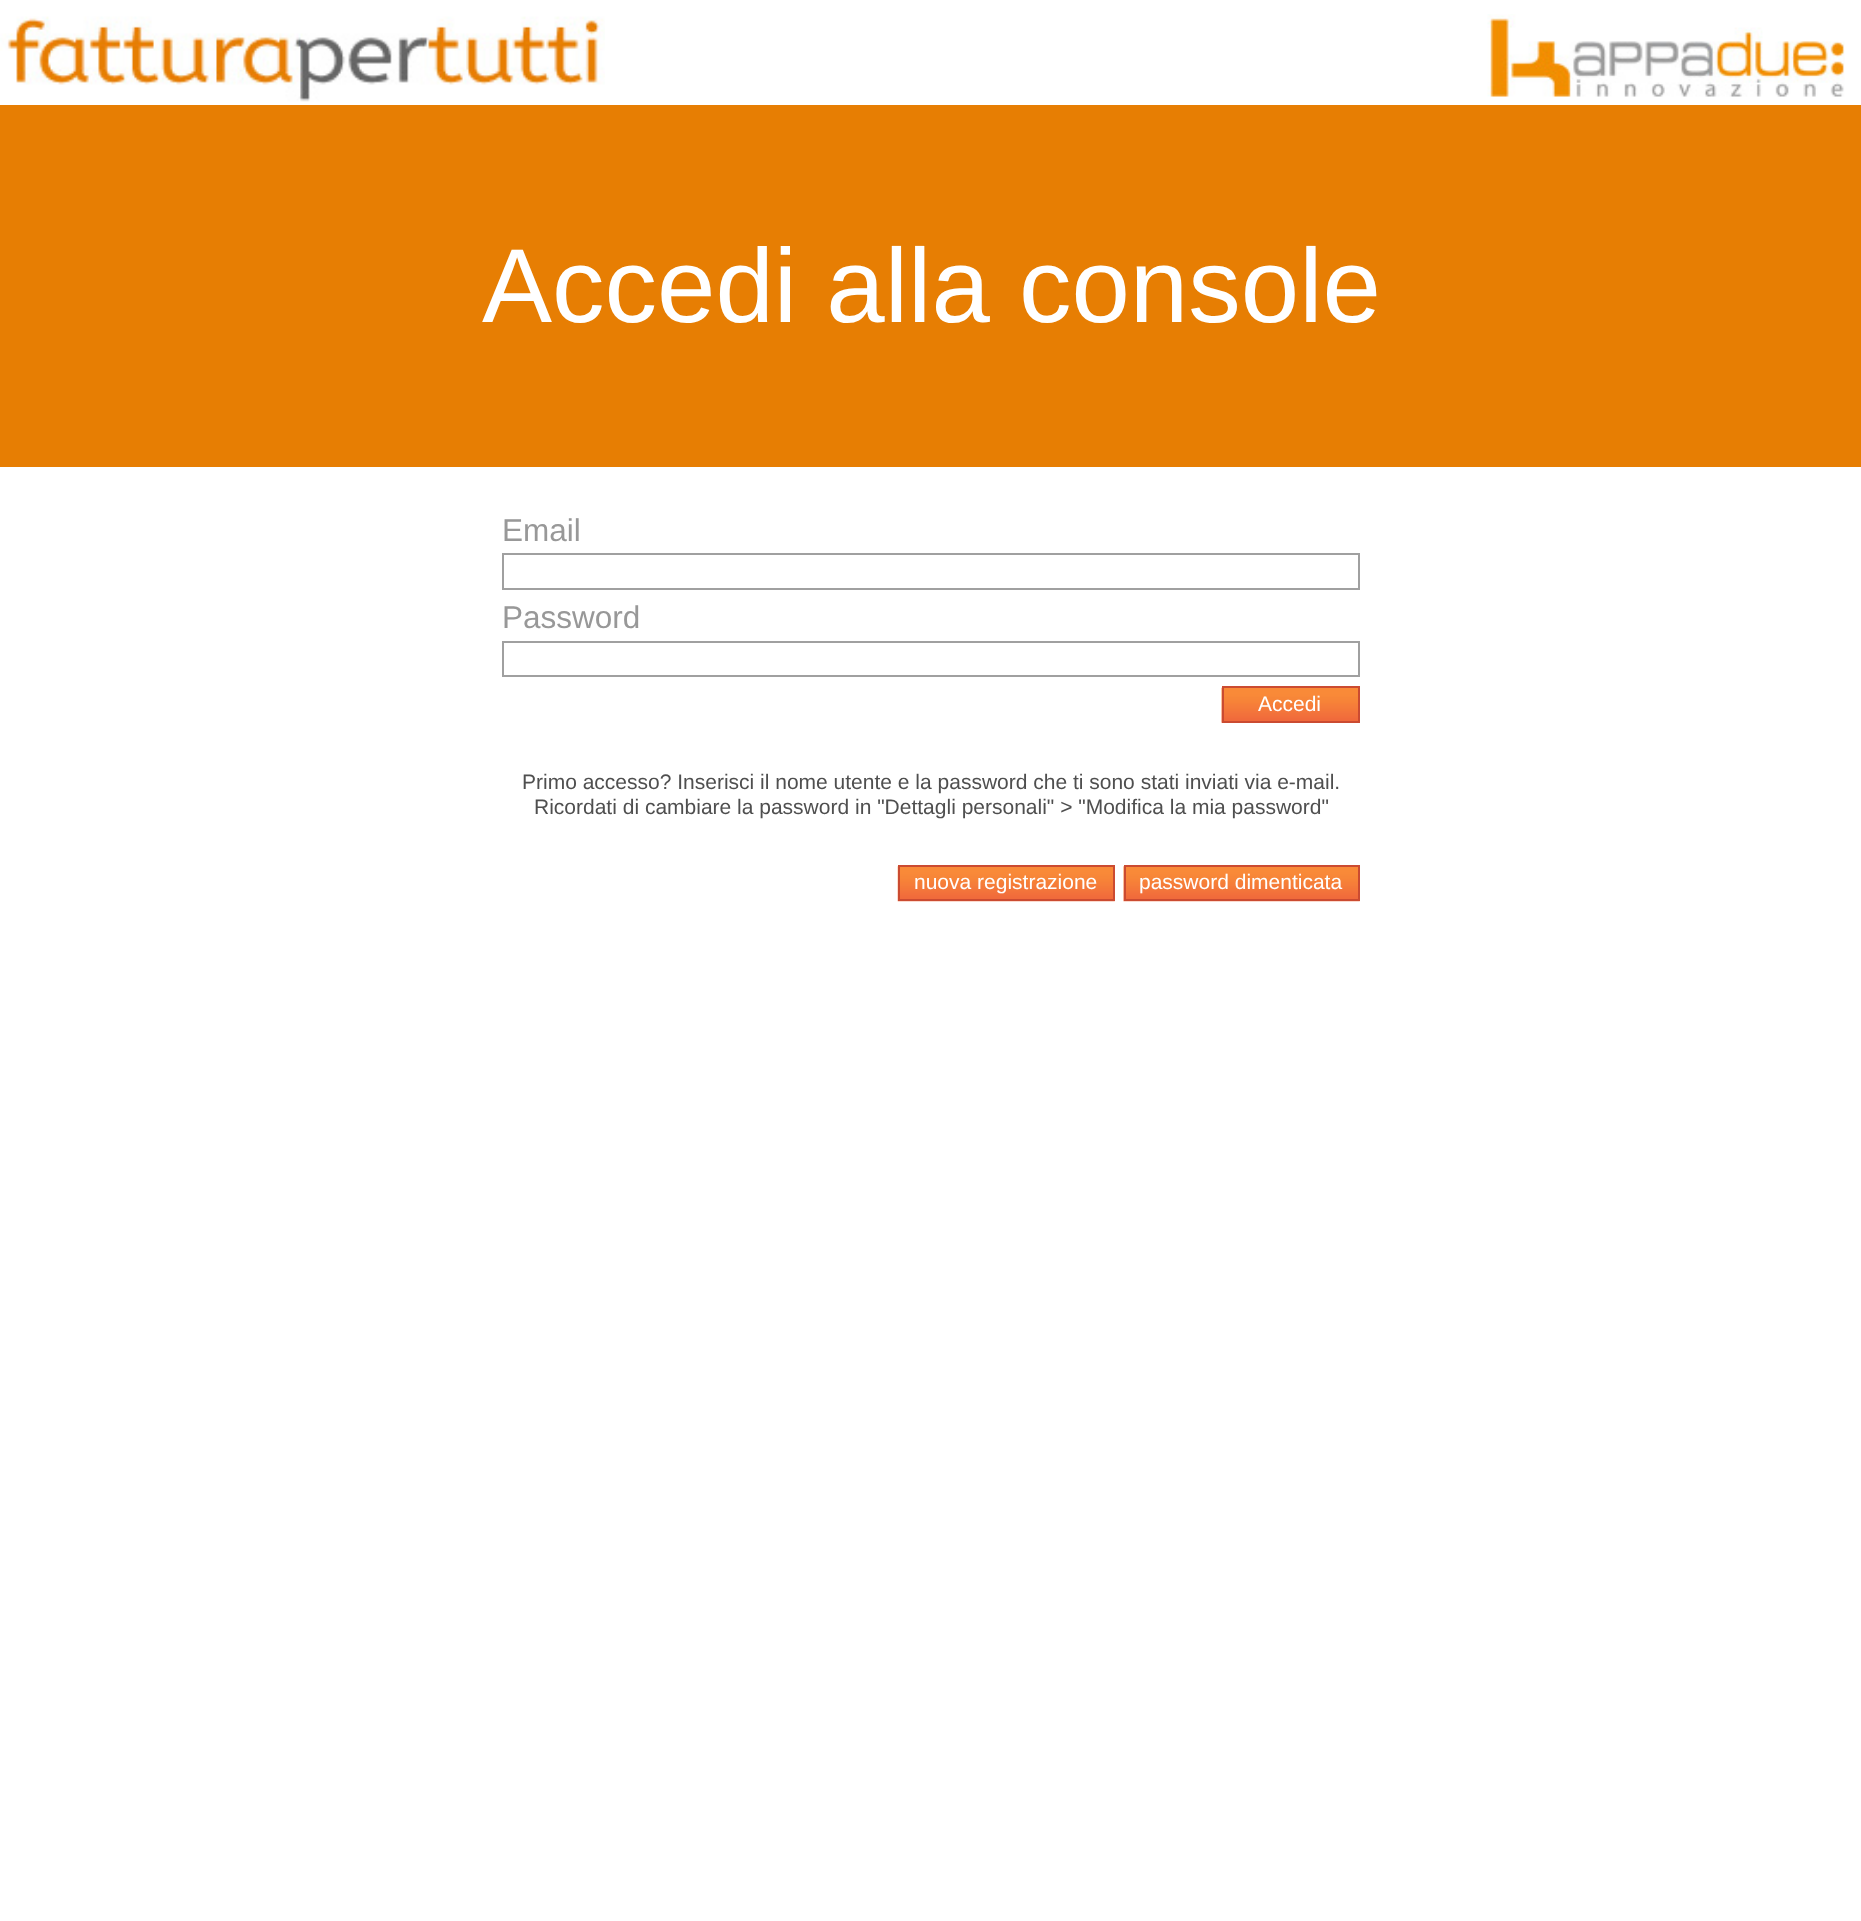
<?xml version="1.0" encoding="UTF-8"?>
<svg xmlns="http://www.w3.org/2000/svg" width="1861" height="1921">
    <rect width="100%" height="100%" fill="#FFFFFF"/>
    <image x="0" y="16" width="605" height="86" href="img_01.png"/>
    <image x="1487" y="14" width="358" height="83" href="img_02.png"/>
    <rect x="0" y="105" width="1861" height="362" fill="#E77E03"/>
    <text x="482" y="322" font-family="Liberation Sans" font-size="105" fill="#FFFFFF">Accedi alla console</text>
    <text x="502" y="541" font-family="Liberation Sans" font-size="31.5" fill="#989898">Email</text>
    <rect x="503" y="554" width="856" height="35" fill="none" stroke="#A0A0A0" stroke-width="2"/>
    <text x="502" y="628" font-family="Liberation Sans" font-size="31.5" fill="#989898">Password</text>
    <rect x="503" y="642" width="856" height="34" fill="none" stroke="#A0A0A0" stroke-width="2"/>
    <image x="1221" y="687" width="137" height="36" href="img_03.png"/>
    <rect x="1223" y="687" width="136" height="35" fill="none" stroke="#CB4B31" stroke-width="2"/>
    <text x="1258" y="711" font-family="Liberation Sans" font-size="21" fill="#FFFFFF">Accedi</text>
    <text x="522" y="789" font-family="Liberation Sans" font-size="21" fill="#4F4F4F">Primo accesso? Inserisci il nome utente e la password che ti sono stati inviati via e-mail.</text>
    <text x="534" y="814" font-family="Liberation Sans" font-size="21" fill="#4F4F4F">Ricordati di cambiare la password in "Dettagli personali" &gt; "Modifica la mia password"</text>
    <image x="897" y="866" width="218" height="36" href="img_04.png"/>
    <rect x="899" y="866" width="215" height="34" fill="none" stroke="#CB4B31" stroke-width="2"/>
    <text x="914" y="889" font-family="Liberation Sans" font-size="21" fill="#FFFFFF">nuova registrazione</text>
    <image x="1123" y="866" width="237" height="36" href="img_05.png"/>
    <rect x="1125" y="866" width="234" height="34" fill="none" stroke="#CB4B31" stroke-width="2"/>
    <text x="1139" y="889" font-family="Liberation Sans" font-size="21" fill="#FFFFFF">password dimenticata</text>
</svg>
